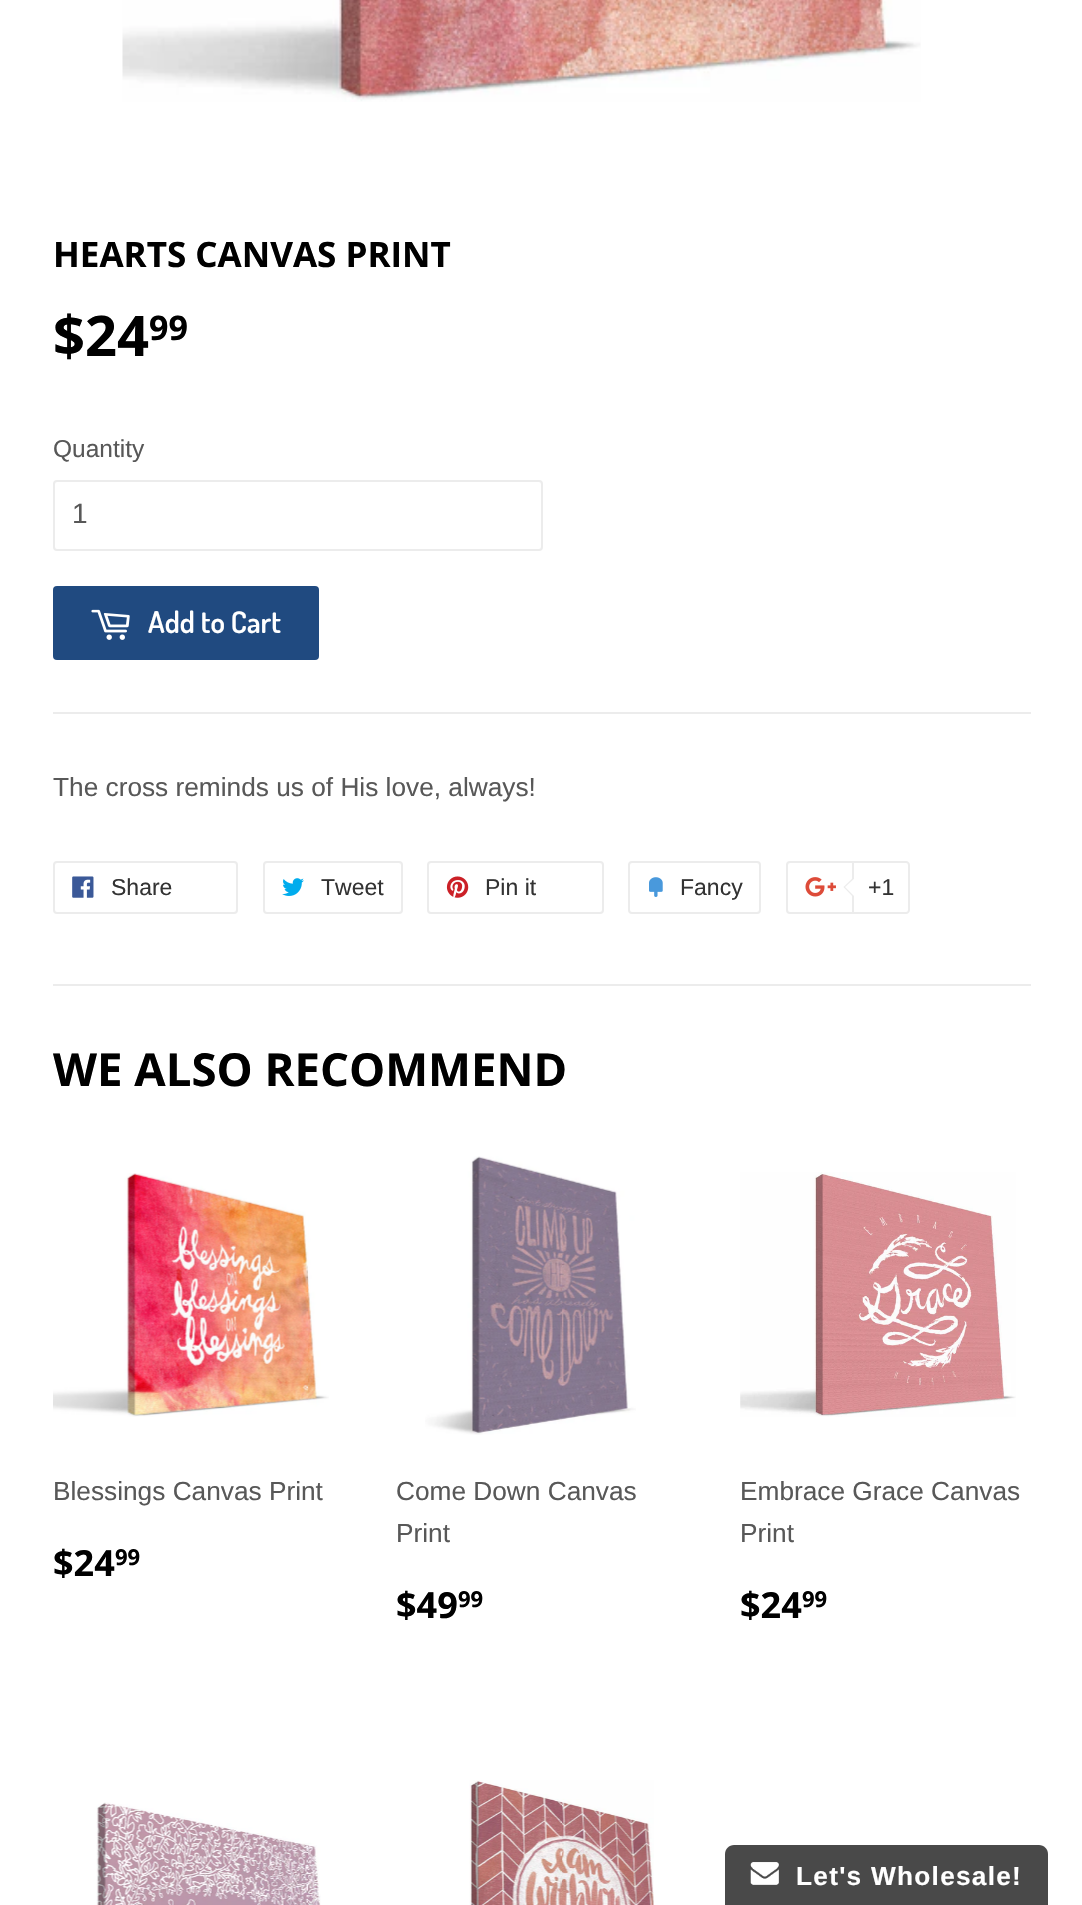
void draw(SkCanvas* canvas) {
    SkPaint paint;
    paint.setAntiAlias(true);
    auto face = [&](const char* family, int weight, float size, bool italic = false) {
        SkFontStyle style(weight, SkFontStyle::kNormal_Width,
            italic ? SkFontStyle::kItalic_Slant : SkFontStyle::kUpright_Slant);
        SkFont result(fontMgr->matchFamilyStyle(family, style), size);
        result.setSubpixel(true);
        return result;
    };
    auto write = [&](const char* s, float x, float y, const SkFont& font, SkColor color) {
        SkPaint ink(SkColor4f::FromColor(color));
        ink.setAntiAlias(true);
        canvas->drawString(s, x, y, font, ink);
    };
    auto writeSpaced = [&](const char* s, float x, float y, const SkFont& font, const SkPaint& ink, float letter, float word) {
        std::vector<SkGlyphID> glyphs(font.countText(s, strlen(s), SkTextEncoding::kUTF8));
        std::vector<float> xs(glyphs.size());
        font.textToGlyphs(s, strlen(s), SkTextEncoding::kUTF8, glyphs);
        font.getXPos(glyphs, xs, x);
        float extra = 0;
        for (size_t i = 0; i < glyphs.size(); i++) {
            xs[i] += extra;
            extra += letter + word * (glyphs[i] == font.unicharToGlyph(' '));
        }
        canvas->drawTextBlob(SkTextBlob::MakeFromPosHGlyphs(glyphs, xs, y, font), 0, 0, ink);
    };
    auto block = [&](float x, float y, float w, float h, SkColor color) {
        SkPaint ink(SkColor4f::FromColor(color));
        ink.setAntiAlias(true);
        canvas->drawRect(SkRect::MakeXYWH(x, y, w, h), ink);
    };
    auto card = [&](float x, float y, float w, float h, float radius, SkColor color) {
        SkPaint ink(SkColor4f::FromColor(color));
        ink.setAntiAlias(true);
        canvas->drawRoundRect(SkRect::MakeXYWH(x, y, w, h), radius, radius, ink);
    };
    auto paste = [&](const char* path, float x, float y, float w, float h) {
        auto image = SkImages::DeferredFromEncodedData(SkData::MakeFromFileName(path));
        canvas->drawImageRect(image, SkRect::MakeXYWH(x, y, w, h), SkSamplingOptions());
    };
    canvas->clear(SK_ColorWHITE);
    paste("pic1.png", 122, 0, 799, 102);
    auto kFont1 = face("Open Sans", 700, 35);
    write("HEARTS CANVAS PRINT", 53, 267, kFont1, SK_ColorBLACK);
    auto kFont2 = face("Open Sans", 700, 56);
    write("$24", 53, 356, kFont2, SK_ColorBLACK);
    auto kFont3 = face("Open Sans", 700, 34);
    write("99", 149, 340, kFont3, SK_ColorBLACK);
    auto kFont4 = face("Liberation Sans", 400, 24.5f);
    write("Quantity", 53, 457, kFont4, SkColorSetRGB(88, 88, 88));
    paint.setStyle(SkPaint::kStroke_Style);
    paint.setStrokeWidth(2);
    paint.setColor(SkColorSetRGB(236, 236, 236));
    canvas->drawRoundRect(SkRect::MakeXYWH(54, 481, 488, 69), 3, 3, paint);
    auto kFont5 = face("Liberation Sans", 400, 28);
    write("1", 72, 523, kFont5, SkColorSetRGB(88, 88, 88));
    card(53, 586, 266, 74, 4, SkColorSetRGB(32, 74, 128));
    paste("pic2.png", 91, 609, 39, 31);
    auto kFont6 = face("Dosis", 600, 29.75f);
    write("Add to Cart", 148, 633, kFont6, SK_ColorWHITE);
    block(53, 712, 978, 2, SkColorSetRGB(236, 236, 236));
    auto kFont7 = face("Liberation Sans", 400, 26.25f);
    write("The cross reminds us of His love, always!", 53, 796, kFont7, SkColorSetRGB(88, 88, 88));
    canvas->drawRoundRect(SkRect::MakeXYWH(54, 862, 183, 51), 3, 3, paint);
    paste("pic3.png", 72, 876, 22, 22);
    auto kFont8 = face("Liberation Sans", 400, 23);
    write("Share", 111, 895, kFont8, SkColorSetRGB(51, 51, 51));
    canvas->drawRoundRect(SkRect::MakeXYWH(264, 862, 138, 51), 3, 3, paint);
    paste("pic4.png", 282, 878, 22, 18);
    write("Tweet", 321, 895, kFont8, SkColorSetRGB(51, 51, 51));
    canvas->drawRoundRect(SkRect::MakeXYWH(428, 862, 175, 51), 3, 3, paint);
    paste("pic5.png", 446, 876, 23, 22);
    write("Pin it", 485, 895, kFont8, SkColorSetRGB(51, 51, 51));
    canvas->drawRoundRect(SkRect::MakeXYWH(629, 862, 131, 51), 3, 3, paint);
    paste("pic6.png", 649, 877, 14, 20);
    write("Fancy", 680, 895, kFont8, SkColorSetRGB(51, 51, 51));
    canvas->drawRoundRect(SkRect::MakeXYWH(787, 862, 120, 51), 3, 3, paint);
    paste("pic7.png", 805, 877, 31, 20);
    paint.setStyle(SkPaint::kFill_Style);
    paint.setColor(SK_ColorWHITE);
    canvas->drawPath(SkPathBuilder().moveTo(853, 862).lineTo(906, 862).cubicTo(907.5f, 862, 909, 863.5f, 909, 865).lineTo(909, 910).cubicTo(909, 911.5f, 907.5f, 913, 906, 913).lineTo(853, 913).close().detach(), paint);
    paint.setStyle(SkPaint::kStroke_Style);
    paint.setColor(SkColorSetRGB(236, 236, 236));
    canvas->drawPath(SkPathBuilder().moveTo(853, 862).lineTo(906, 862).cubicTo(907.5f, 862, 909, 863.5f, 909, 865).lineTo(909, 910).cubicTo(909, 911.5f, 907.5f, 913, 906, 913).lineTo(853, 913).close().detach(), paint);
    paint.setStyle(SkPaint::kFill_Style);
    canvas->drawPath(SkPathBuilder().moveTo(854, 877).lineTo(854, 898).lineTo(843.5f, 887).close().detach(), paint);
    paint.setColor(SK_ColorWHITE);
    canvas->drawPath(SkPathBuilder().moveTo(856, 877).lineTo(856, 898).lineTo(845, 887).close().detach(), paint);
    write("+1", 868, 895, kFont8, SkColorSetRGB(51, 51, 51));
    block(53, 984, 978, 2, SkColorSetRGB(236, 236, 236));
    auto kFont9 = face("Open Sans", 700, 45.5f);
    write("WE ALSO RECOMMEND", 53, 1086, kFont9, SK_ColorBLACK);
    paste("pic8.png", 53, 1173, 276, 244);
    write("Blessings Canvas Print", 53, 1500, kFont7, SkColorSetRGB(88, 88, 88));
    auto kFont10 = face("Open Sans", 700, 36);
    write("$24", 53, 1576, kFont10, SK_ColorBLACK);
    auto kFont11 = face("Open Sans", 700, 22);
    write("99", 115, 1565, kFont11, SK_ColorBLACK);
    paste("pic9.png", 425, 1156, 211, 279);
    write("Come Down Canvas", 396, 1500, kFont7, SkColorSetRGB(88, 88, 88));
    write("Print", 396, 1542, kFont7, SkColorSetRGB(88, 88, 88));
    write("$49", 396, 1618, kFont10, SK_ColorBLACK);
    write("99", 458, 1607, kFont11, SK_ColorBLACK);
    paste("pic10.png", 740, 1172, 276, 245);
    write("Embrace Grace Canvas", 740, 1500, kFont7, SkColorSetRGB(88, 88, 88));
    write("Print", 740, 1542, kFont7, SkColorSetRGB(88, 88, 88));
    write("$24", 740, 1618, kFont10, SK_ColorBLACK);
    write("99", 802, 1607, kFont11, SK_ColorBLACK);
    paste("pic11.png", 96, 1802, 225, 103);
    paste("pic12.png", 469, 1780, 185, 125);
    paint.setColor(SkColorSetRGB(73, 73, 73));
    canvas->drawPath(SkPathBuilder().moveTo(734, 1845).lineTo(1039, 1845).cubicTo(1044, 1845, 1048, 1849, 1048, 1854).lineTo(1048, 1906).lineTo(725, 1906).lineTo(725, 1854).cubicTo(725, 1849, 729, 1845, 734, 1845).close().detach(), paint);
    paste("pic13.png", 750, 1862, 29, 23);
    auto kFont12 = face("Liberation Sans", 700, 26.25f);
    paint.setColor(SK_ColorWHITE);
    writeSpaced("Let's Wholesale!", 796, 1885, kFont12, paint, 1.25f, 0);
}
